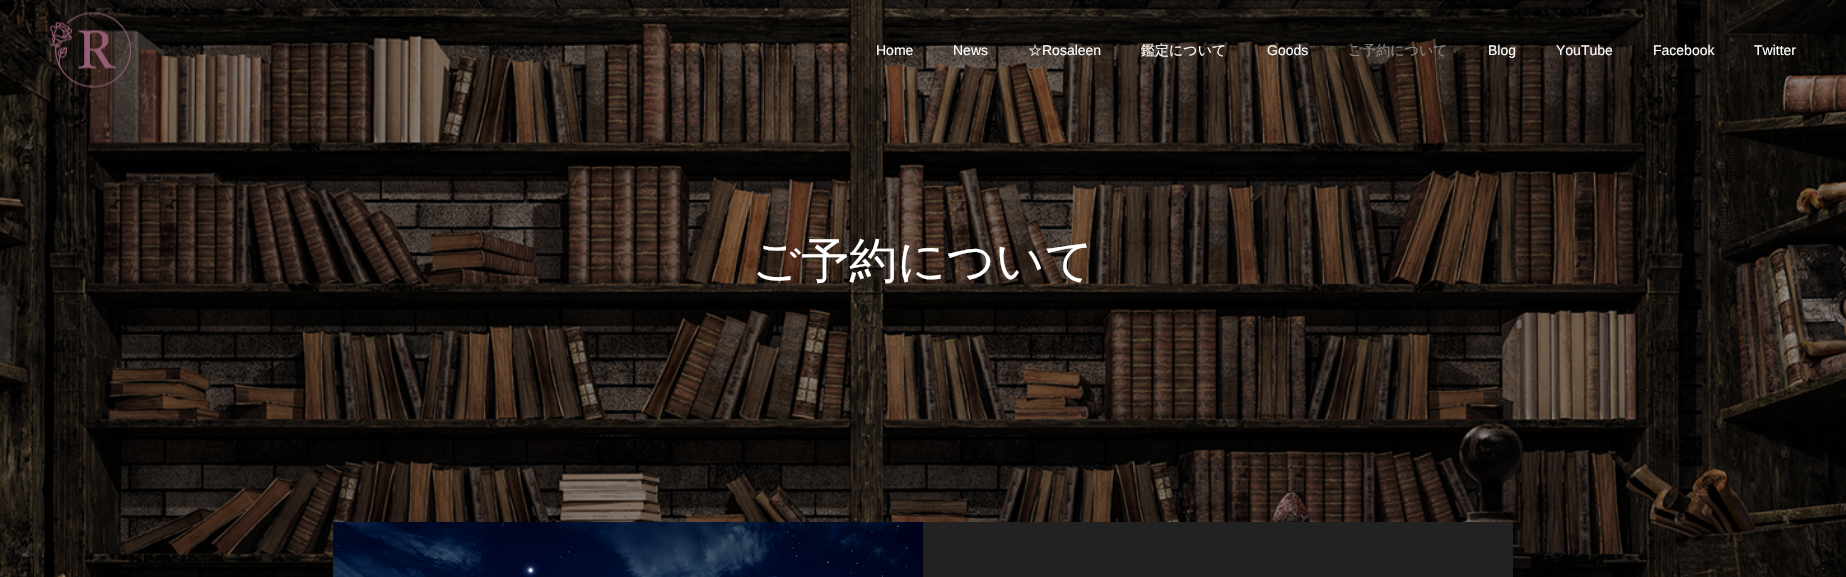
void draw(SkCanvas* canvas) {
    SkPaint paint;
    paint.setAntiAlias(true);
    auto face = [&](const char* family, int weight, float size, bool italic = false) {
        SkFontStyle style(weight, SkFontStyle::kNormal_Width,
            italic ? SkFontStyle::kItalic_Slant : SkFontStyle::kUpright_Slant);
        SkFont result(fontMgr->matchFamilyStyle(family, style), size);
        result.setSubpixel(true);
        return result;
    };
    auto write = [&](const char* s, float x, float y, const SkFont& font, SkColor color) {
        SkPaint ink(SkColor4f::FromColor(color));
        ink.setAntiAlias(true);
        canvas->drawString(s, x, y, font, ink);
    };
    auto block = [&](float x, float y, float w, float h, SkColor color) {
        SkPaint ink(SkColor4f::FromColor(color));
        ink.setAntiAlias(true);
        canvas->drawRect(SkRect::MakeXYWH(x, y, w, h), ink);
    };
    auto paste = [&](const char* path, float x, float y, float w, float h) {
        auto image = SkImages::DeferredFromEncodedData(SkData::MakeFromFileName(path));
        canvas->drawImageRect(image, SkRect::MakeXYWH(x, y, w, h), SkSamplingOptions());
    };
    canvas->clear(SK_ColorWHITE);
    paste("pic1.png", 0, 0, 1846, 577);
    paste("pic2.png", 50, 12, 81, 76);
    auto kFont1 = face("Liberation Sans", 400, 14);
    write("Home", 876, 55, kFont1, SK_ColorWHITE);
    write("News", 953, 55, kFont1, SK_ColorWHITE);
    auto kFont2 = face("WenQuanYi Zen Hei", 500, 14);
    write("☆", 1028, 55, kFont2, SK_ColorWHITE);
    write("Rosaleen", 1042, 55, kFont1, SK_ColorWHITE);
    write("鑑定について", 1141, 55, kFont2, SK_ColorWHITE);
    write("Goods", 1267, 55, kFont1, SK_ColorWHITE);
    write("ご予約について", 1348, 55, kFont2, SkColorSetRGB(136, 136, 136));
    write("Blog", 1488, 55, kFont1, SK_ColorWHITE);
    write("YouTube", 1556, 55, kFont1, SK_ColorWHITE);
    write("Facebook", 1653, 55, kFont1, SK_ColorWHITE);
    write("Twitter", 1754, 55, kFont1, SK_ColorWHITE);
    auto kFont3 = face("WenQuanYi Zen Hei", 500, 48);
    write("ご予約について", 752, 277, kFont3, SK_ColorWHITE);
    block(923, 522, 590, 55, SkColorSetRGB(34, 34, 34));
    paste("pic3.png", 333, 522, 590, 55);
}
